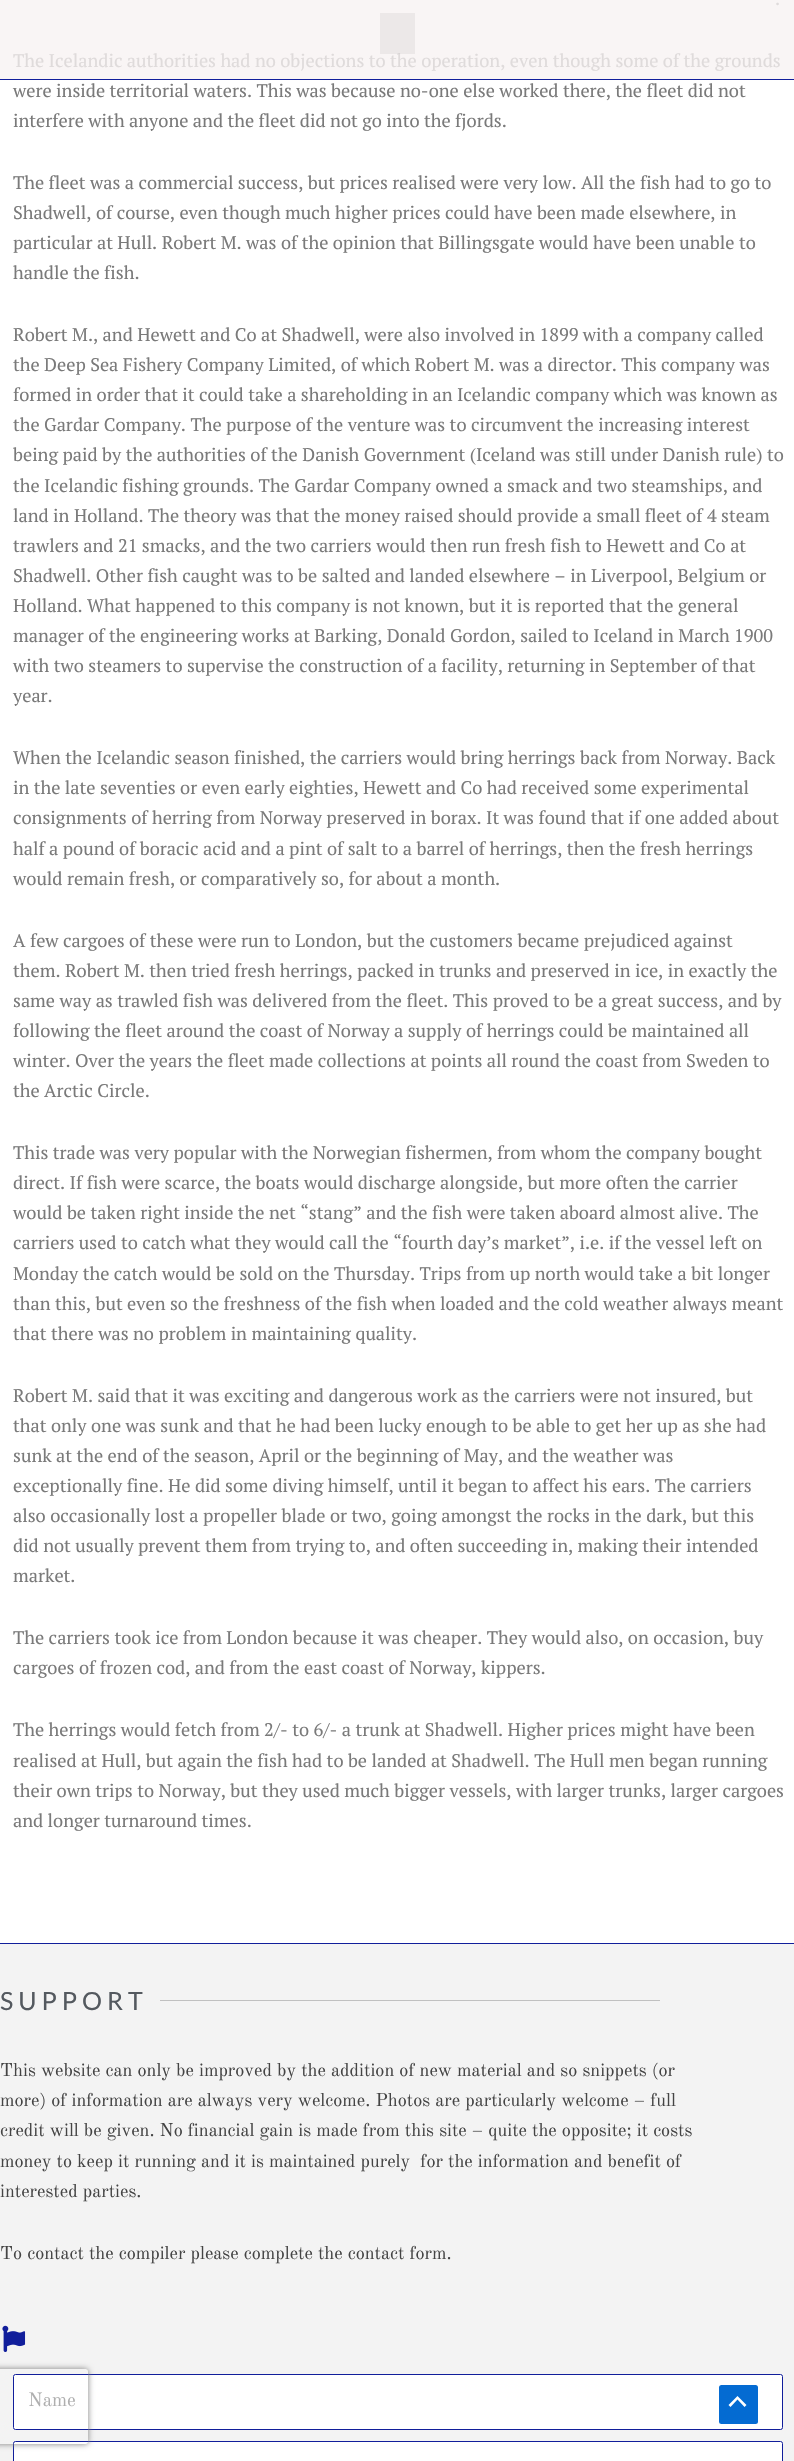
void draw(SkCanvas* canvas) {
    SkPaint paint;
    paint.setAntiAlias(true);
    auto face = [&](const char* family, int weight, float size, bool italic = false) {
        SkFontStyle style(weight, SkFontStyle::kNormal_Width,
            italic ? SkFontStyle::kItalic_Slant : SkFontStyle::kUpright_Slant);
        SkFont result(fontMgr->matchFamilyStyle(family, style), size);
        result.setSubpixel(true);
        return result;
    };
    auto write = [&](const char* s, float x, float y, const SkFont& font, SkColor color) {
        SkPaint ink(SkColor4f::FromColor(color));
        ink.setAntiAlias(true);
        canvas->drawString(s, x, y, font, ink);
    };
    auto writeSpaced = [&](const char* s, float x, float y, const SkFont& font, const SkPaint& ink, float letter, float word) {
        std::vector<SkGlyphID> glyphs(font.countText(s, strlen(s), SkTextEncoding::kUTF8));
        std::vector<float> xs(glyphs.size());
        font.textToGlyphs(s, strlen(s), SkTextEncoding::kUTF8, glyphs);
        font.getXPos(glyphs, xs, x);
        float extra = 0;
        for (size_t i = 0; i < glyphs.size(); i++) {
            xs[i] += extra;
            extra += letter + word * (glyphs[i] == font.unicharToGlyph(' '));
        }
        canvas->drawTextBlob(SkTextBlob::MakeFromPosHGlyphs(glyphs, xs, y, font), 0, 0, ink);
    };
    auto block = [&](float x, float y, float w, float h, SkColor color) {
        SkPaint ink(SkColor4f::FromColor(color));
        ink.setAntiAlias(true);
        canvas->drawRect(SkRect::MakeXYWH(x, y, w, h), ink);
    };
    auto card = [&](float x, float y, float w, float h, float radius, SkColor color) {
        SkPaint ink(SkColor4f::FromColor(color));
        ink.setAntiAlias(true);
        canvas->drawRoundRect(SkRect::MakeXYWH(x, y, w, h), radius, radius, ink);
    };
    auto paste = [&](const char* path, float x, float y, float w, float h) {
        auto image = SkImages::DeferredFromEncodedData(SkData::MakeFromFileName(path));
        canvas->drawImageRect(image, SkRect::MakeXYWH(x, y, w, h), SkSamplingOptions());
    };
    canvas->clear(SK_ColorWHITE);
    block(0, 0, 794, 79, SkColorSetRGB(249, 245, 245));
    auto kFont1 = face("PT Serif", 400, 18.25f);
    write(".", 775, 5, kFont1, SkColorSetRGB(223, 219, 219));
    write("The Icelandic authorities had no objections to the operation, even though some of the grounds", 13, 67, kFont1, SkColorSetRGB(223, 219, 219));
    write("were inside territorial waters. This was because no-one else worked there, the fleet did not", 13, 97, kFont1, SkColorSetRGB(122, 122, 122));
    write("interfere with anyone and the fleet did not go into the fjords.", 13, 127, kFont1, SkColorSetRGB(122, 122, 122));
    write("The fleet was a commercial success, but prices realised were very low. All the fish had to go to", 13, 189, kFont1, SkColorSetRGB(122, 122, 122));
    write("Shadwell, of course, even though much higher prices could have been made elsewhere, in", 13, 219, kFont1, SkColorSetRGB(122, 122, 122));
    write("particular at Hull. Robert M. was of the opinion that Billingsgate would have been unable to", 13, 249, kFont1, SkColorSetRGB(122, 122, 122));
    write("handle the fish.", 13, 279, kFont1, SkColorSetRGB(122, 122, 122));
    write("Robert M., and Hewett and Co at Shadwell, were also involved in 1899 with a company called", 13, 341, kFont1, SkColorSetRGB(122, 122, 122));
    write("the Deep Sea Fishery Company Limited, of which Robert M. was a director. This company was", 13, 371, kFont1, SkColorSetRGB(122, 122, 122));
    write("formed in order that it could take a shareholding in an Icelandic company which was known as", 13, 401, kFont1, SkColorSetRGB(122, 122, 122));
    write("the Gardar Company. The purpose of the venture was to circumvent the increasing interest", 13, 431, kFont1, SkColorSetRGB(122, 122, 122));
    write("being paid by the authorities of the Danish Government (Iceland was still under Danish rule) to", 13, 461, kFont1, SkColorSetRGB(122, 122, 122));
    write("the Icelandic fishing grounds. The Gardar Company owned a smack and two steamships, and", 13, 492, kFont1, SkColorSetRGB(122, 122, 122));
    write("land in Holland. The theory was that the money raised should provide a small fleet of 4 steam", 13, 522, kFont1, SkColorSetRGB(122, 122, 122));
    write("trawlers and 21 smacks, and the two carriers would then run fresh fish to Hewett and Co at", 13, 552, kFont1, SkColorSetRGB(122, 122, 122));
    write("Shadwell. Other fish caught was to be salted and landed elsewhere – in Liverpool, Belgium or", 13, 582, kFont1, SkColorSetRGB(122, 122, 122));
    write("Holland. What happened to this company is not known, but it is reported that the general", 13, 612, kFont1, SkColorSetRGB(122, 122, 122));
    write("manager of the engineering works at Barking, Donald Gordon, sailed to Iceland in March 1900", 13, 642, kFont1, SkColorSetRGB(122, 122, 122));
    write("with two steamers to supervise the construction of a facility, returning in September of that", 13, 672, kFont1, SkColorSetRGB(122, 122, 122));
    write("year.", 13, 702, kFont1, SkColorSetRGB(122, 122, 122));
    write("When the Icelandic season finished, the carriers would bring herrings back from Norway. Back", 13, 764, kFont1, SkColorSetRGB(122, 122, 122));
    write("in the late seventies or even early eighties, Hewett and Co had received some experimental", 13, 794, kFont1, SkColorSetRGB(122, 122, 122));
    write("consignments of herring from Norway preserved in borax. It was found that if one added about", 13, 824, kFont1, SkColorSetRGB(122, 122, 122));
    write("half a pound of boracic acid and a pint of salt to a barrel of herrings, then the fresh herrings", 13, 855, kFont1, SkColorSetRGB(122, 122, 122));
    write("would remain fresh, or comparatively so, for about a month.", 13, 885, kFont1, SkColorSetRGB(122, 122, 122));
    write("A few cargoes of these were run to London, but the customers became prejudiced against", 13, 947, kFont1, SkColorSetRGB(122, 122, 122));
    write("them. Robert M. then tried fresh herrings, packed in trunks and preserved in ice, in exactly the", 13, 977, kFont1, SkColorSetRGB(122, 122, 122));
    write("same way as trawled fish was delivered from the fleet. This proved to be a great success, and by", 13, 1007, kFont1, SkColorSetRGB(122, 122, 122));
    write("following the fleet around the coast of Norway a supply of herrings could be maintained all", 13, 1037, kFont1, SkColorSetRGB(122, 122, 122));
    write("winter. Over the years the fleet made collections at points all round the coast from Sweden to", 13, 1067, kFont1, SkColorSetRGB(122, 122, 122));
    write("the Arctic Circle.", 13, 1097, kFont1, SkColorSetRGB(122, 122, 122));
    write("This trade was very popular with the Norwegian fishermen, from whom the company bought", 13, 1159, kFont1, SkColorSetRGB(122, 122, 122));
    write("direct. If fish were scarce, the boats would discharge alongside, but more often the carrier", 13, 1189, kFont1, SkColorSetRGB(122, 122, 122));
    write("would be taken right inside the net “stang” and the fish were taken aboard almost alive. The", 13, 1219, kFont1, SkColorSetRGB(122, 122, 122));
    write("carriers used to catch what they would call the “fourth day’s market”, i.e. if the vessel left on", 13, 1249, kFont1, SkColorSetRGB(122, 122, 122));
    write("Monday the catch would be sold on the Thursday. Trips from up north would take a bit longer", 13, 1280, kFont1, SkColorSetRGB(122, 122, 122));
    write("than this, but even so the freshness of the fish when loaded and the cold weather always meant", 13, 1310, kFont1, SkColorSetRGB(122, 122, 122));
    write("that there was no problem in maintaining quality.", 13, 1340, kFont1, SkColorSetRGB(122, 122, 122));
    write("Robert M. said that it was exciting and dangerous work as the carriers were not insured, but", 13, 1402, kFont1, SkColorSetRGB(122, 122, 122));
    write("that only one was sunk and that he had been lucky enough to be able to get her up as she had", 13, 1432, kFont1, SkColorSetRGB(122, 122, 122));
    write("sunk at the end of the season, April or the beginning of May, and the weather was", 13, 1462, kFont1, SkColorSetRGB(122, 122, 122));
    write("exceptionally fine. He did some diving himself, until it began to affect his ears. The carriers", 13, 1492, kFont1, SkColorSetRGB(122, 122, 122));
    write("also occasionally lost a propeller blade or two, going amongst the rocks in the dark, but this", 13, 1522, kFont1, SkColorSetRGB(122, 122, 122));
    write("did not usually prevent them from trying to, and often succeeding in, making their intended", 13, 1552, kFont1, SkColorSetRGB(122, 122, 122));
    write("market.", 13, 1582, kFont1, SkColorSetRGB(122, 122, 122));
    write("The carriers took ice from London because it was cheaper. They would also, on occasion, buy", 13, 1644, kFont1, SkColorSetRGB(122, 122, 122));
    write("cargoes of frozen cod, and from the east coast of Norway, kippers.", 13, 1674, kFont1, SkColorSetRGB(122, 122, 122));
    write("The herrings would fetch from 2/- to 6/- a trunk at Shadwell. Higher prices might have been", 13, 1736, kFont1, SkColorSetRGB(122, 122, 122));
    write("realised at Hull, but again the fish had to be landed at Shadwell. The Hull men began running", 13, 1767, kFont1, SkColorSetRGB(122, 122, 122));
    write("their own trips to Norway, but they used much bigger vessels, with larger trunks, larger cargoes", 13, 1797, kFont1, SkColorSetRGB(122, 122, 122));
    write("and longer turnaround times.", 13, 1827, kFont1, SkColorSetRGB(122, 122, 122));
    block(0, 79, 794, 1, SkColorSetRGB(17, 30, 155));
    block(380, 13, 35, 41, SkColorSetARGB(13, 0, 0, 0));
    block(0, 1944, 794, 517, SkColorSetRGB(243, 243, 243));
    block(0, 1943, 794, 1, SkColorSetRGB(17, 30, 155));
    auto kFont2 = face("Lato", 400, 25);
    paint.setColor(SkColorSetRGB(84, 89, 95));
    writeSpaced("SUPPORT", 0, 2010, kFont2, paint, 5, 0);
    block(160, 2000, 500, 1, SkColorSetRGB(192, 192, 192));
    auto kFont3 = face("Old Standard TT", 400, 18.25f);
    write("This website can only be improved by the addition of new material and so snippets (or", 0, 2076, kFont3, SkColorSetRGB(68, 68, 68));
    write("more) of information are always very welcome. Photos are particularly welcome – full", 0, 2106, kFont3, SkColorSetRGB(68, 68, 68));
    write("credit will be given. No financial gain is made from this site – quite the opposite; it costs", 0, 2136, kFont3, SkColorSetRGB(68, 68, 68));
    write("money to keep it running and it is maintained purely  for the information and benefit of", 0, 2167, kFont3, SkColorSetRGB(68, 68, 68));
    write("interested parties.", 0, 2197, kFont3, SkColorSetRGB(68, 68, 68));
    write("To contact the compiler please complete the contact form.", 0, 2259, kFont3, SkColorSetRGB(68, 68, 68));
    paste("pic1.png", 2, 2325, 24, 27);
    paint.setColor(SK_ColorWHITE);
    canvas->drawRoundRect(SkRect::MakeXYWH(13.5f, 2374.5f, 769, 55), 2, 2, paint);
    paint.setStyle(SkPaint::kStroke_Style);
    paint.setStrokeWidth(1);
    paint.setColor(SkColorSetRGB(17, 30, 155));
    canvas->drawRoundRect(SkRect::MakeXYWH(13.5f, 2374.5f, 769, 55), 2, 2, paint);
    paint.setStyle(SkPaint::kFill_Style);
    paint.setColor(SK_ColorWHITE);
    canvas->drawRoundRect(SkRect::MakeXYWH(13.5f, 2441.5f, 769, 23), 2, 2, paint);
    paint.setStyle(SkPaint::kStroke_Style);
    paint.setColor(SkColorSetRGB(17, 30, 155));
    canvas->drawRoundRect(SkRect::MakeXYWH(13.5f, 2441.5f, 769, 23), 2, 2, paint);
    canvas->save();
    canvas->clipPath(SkPathBuilder(SkPathFillType::kEvenOdd).moveTo(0, 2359).lineTo(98, 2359).lineTo(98, 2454).lineTo(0, 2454).close().moveTo(-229.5f, 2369).lineTo(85.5f, 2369).cubicTo(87, 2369, 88, 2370, 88, 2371.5f).lineTo(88, 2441.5f).cubicTo(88, 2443, 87, 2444, 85.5f, 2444).lineTo(-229.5f, 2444).cubicTo(-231, 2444, -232, 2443, -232, 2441.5f).lineTo(-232, 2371.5f).cubicTo(-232, 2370, -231, 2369, -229.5f, 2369).close().detach(), true);
    paint.setStyle(SkPaint::kFill_Style);
    paint.setColor(SkColorSetRGB(128, 128, 128));
    paint.setMaskFilter(SkMaskFilter::MakeBlur(kNormal_SkBlurStyle, 3));
    canvas->drawRoundRect(SkRect::MakeXYWH(-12, 2369, 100, 75), 2.5f, 2.5f, paint);
    paint.setMaskFilter(nullptr);
    canvas->restore();
    auto kFont4 = face("Old Standard TT", 400, 19);
    write("Name", 28, 2406, kFont4, SkColorSetRGB(175, 175, 175));
    card(719, 2385, 39, 39, 2.5f, SkColorSetRGB(4, 107, 210));
    paint.setColor(SK_ColorWHITE);
    canvas->drawPath(SkPathBuilder().moveTo(746.5f, 2405).lineTo(737.5f, 2396).lineTo(728.5f, 2405).lineTo(730.5f, 2407).lineTo(737.5f, 2399.5f).lineTo(744.5f, 2407).close().detach(), paint);
}
